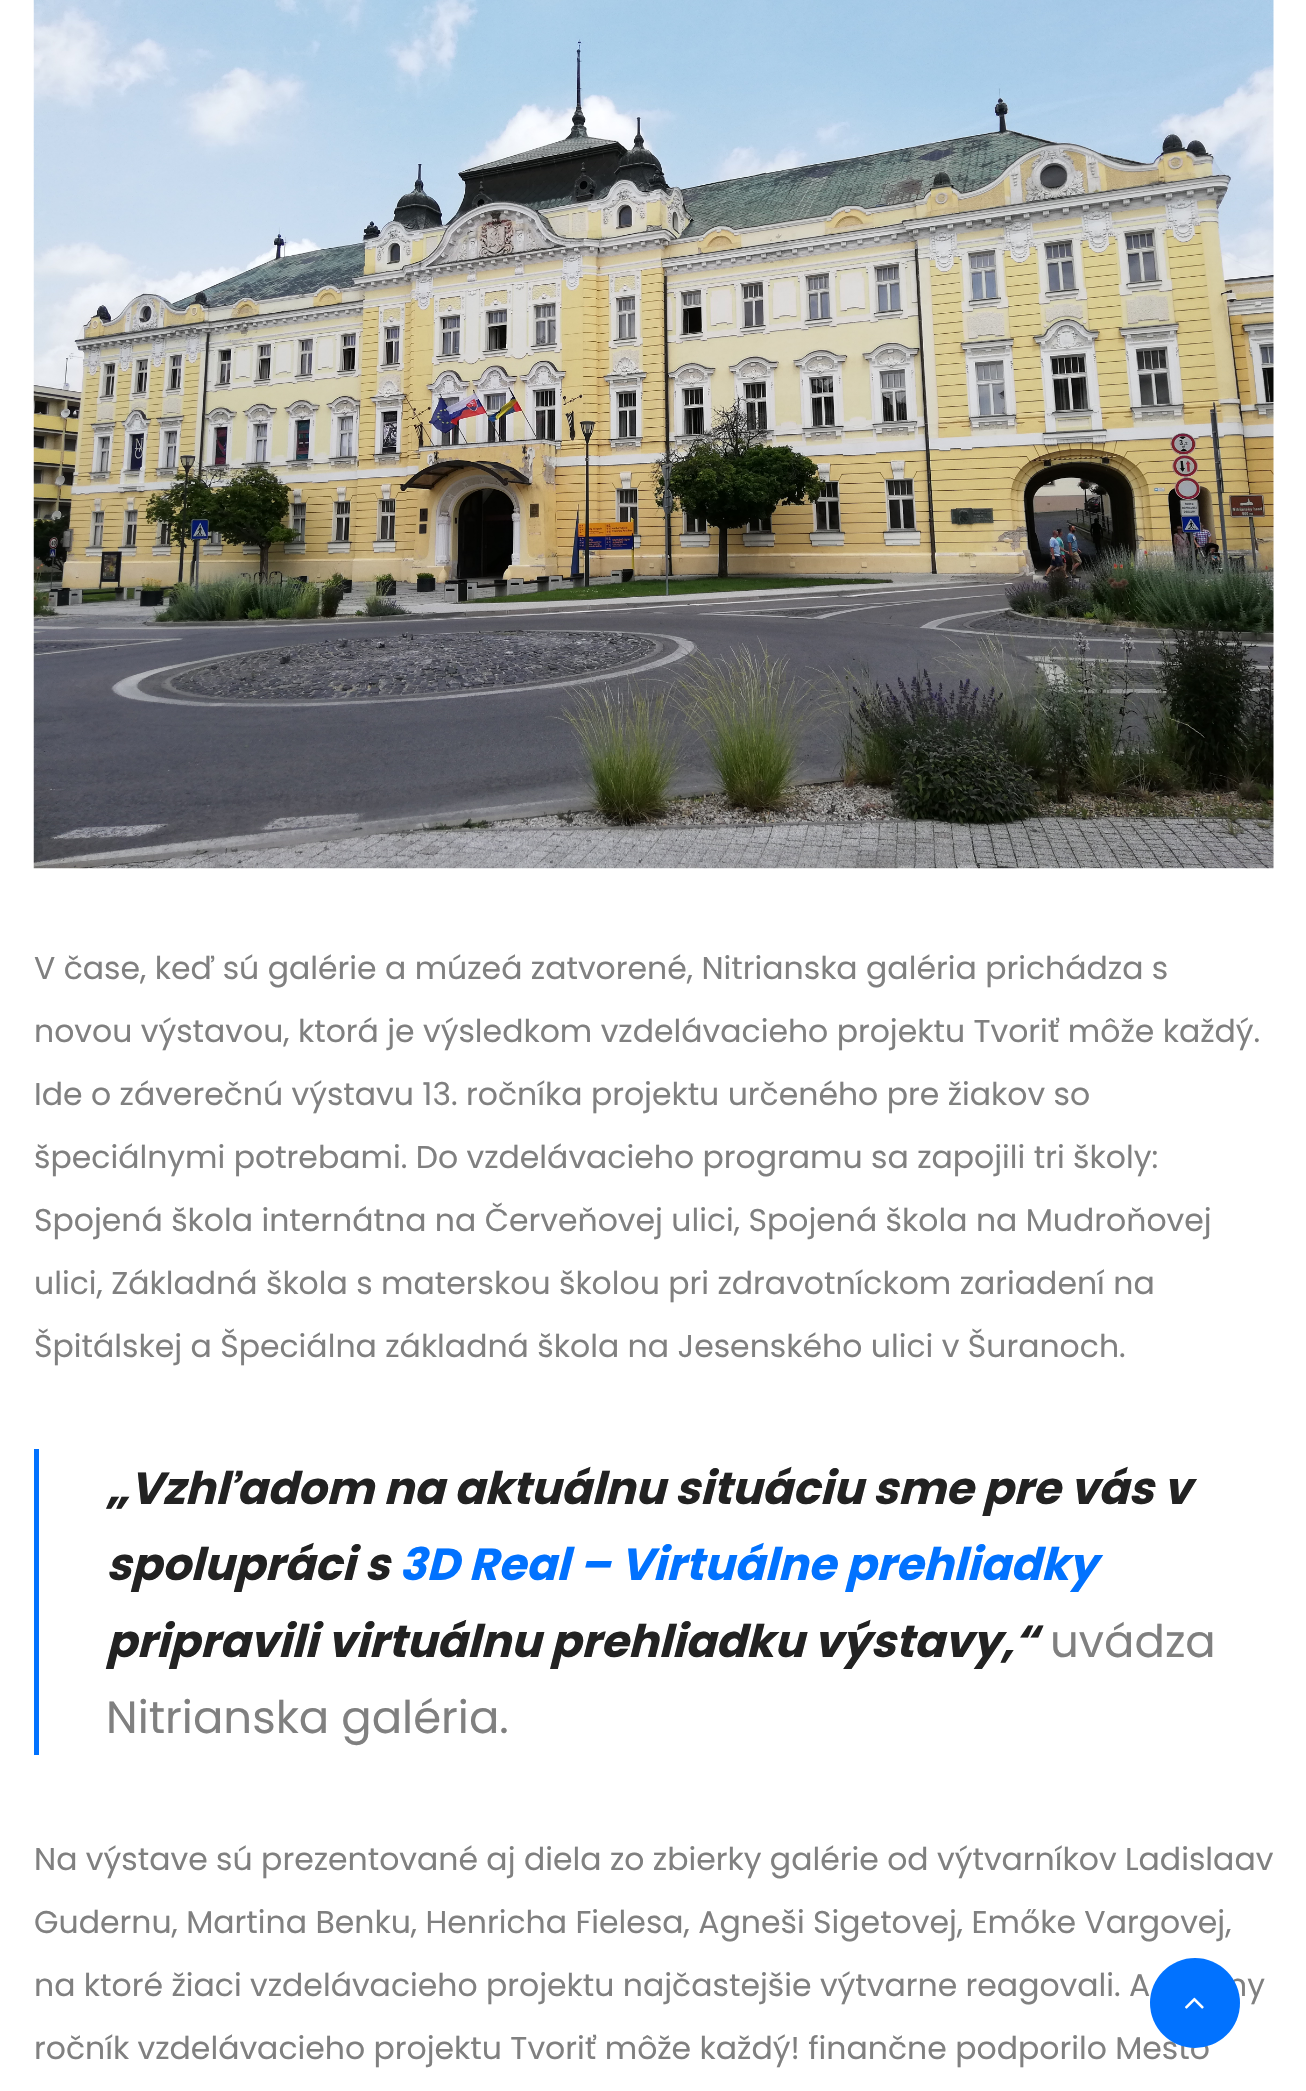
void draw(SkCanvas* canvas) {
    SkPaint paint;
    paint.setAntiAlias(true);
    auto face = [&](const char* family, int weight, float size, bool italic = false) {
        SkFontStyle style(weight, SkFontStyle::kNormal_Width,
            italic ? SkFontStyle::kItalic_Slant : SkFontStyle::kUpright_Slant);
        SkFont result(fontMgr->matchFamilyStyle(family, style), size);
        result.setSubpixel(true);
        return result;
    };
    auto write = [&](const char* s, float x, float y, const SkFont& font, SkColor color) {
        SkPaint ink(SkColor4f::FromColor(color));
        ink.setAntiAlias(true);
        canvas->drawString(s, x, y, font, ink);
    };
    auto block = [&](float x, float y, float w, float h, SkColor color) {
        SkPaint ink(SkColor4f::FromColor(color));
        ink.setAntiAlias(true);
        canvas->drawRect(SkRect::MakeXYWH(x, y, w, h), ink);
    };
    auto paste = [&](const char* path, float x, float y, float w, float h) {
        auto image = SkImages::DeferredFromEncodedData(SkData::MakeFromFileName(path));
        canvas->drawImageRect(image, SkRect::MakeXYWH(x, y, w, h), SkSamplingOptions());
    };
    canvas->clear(SK_ColorWHITE);
    paste("pic1.png", 33, 0, 1241, 869);
    auto kFont1 = face("Poppins", 400, 31.5f);
    write("V čase, keď sú galérie a múzeá zatvorené, Nitrianska galéria prichádza s", 34, 979, kFont1, SkColorSetRGB(128, 128, 128));
    write("novou výstavou, ktorá je výsledkom vzdelávacieho projektu Tvoriť môže každý.", 34, 1042, kFont1, SkColorSetRGB(128, 128, 128));
    write("Ide o záverečnú výstavu 13. ročníka projektu určeného pre žiakov so", 34, 1105, kFont1, SkColorSetRGB(128, 128, 128));
    write("špeciálnymi potrebami. Do vzdelávacieho programu sa zapojili tri školy:", 34, 1168, kFont1, SkColorSetRGB(128, 128, 128));
    write("Spojená škola internátna na Červeňovej ulici, Spojená škola na Mudroňovej", 34, 1231, kFont1, SkColorSetRGB(128, 128, 128));
    write("ulici, Základná škola s materskou školou pri zdravotníckom zariadení na", 34, 1294, kFont1, SkColorSetRGB(128, 128, 128));
    write("Špitálskej a Špeciálna základná škola na Jesenského ulici v Šuranoch.", 34, 1357, kFont1, SkColorSetRGB(128, 128, 128));
    block(34, 1449, 5, 306, SkColorSetRGB(1, 114, 255));
    auto kFont2 = face("Poppins", 700, 45, true);
    write("„Vzhľadom na aktuálnu situáciu sme pre vás v", 106, 1504, kFont2, SkColorSetRGB(34, 34, 34));
    write("spolupráci s", 106, 1580, kFont2, SkColorSetRGB(34, 34, 34));
    write("3D Real – Virtuálne prehliadky", 399, 1580, kFont2, SkColorSetRGB(1, 114, 255));
    write("pripravili virtuálnu prehliadku výstavy,“", 106, 1657, kFont2, SkColorSetRGB(34, 34, 34));
    auto kFont3 = face("Poppins", 400, 45);
    write("uvádza", 1050, 1657, kFont3, SkColorSetRGB(128, 128, 128));
    write("Nitrianska galéria.", 106, 1733, kFont3, SkColorSetRGB(128, 128, 128));
    write("Na výstave sú prezentované aj diela zo zbierky galérie od výtvarníkov Ladislaav", 34, 1870, kFont1, SkColorSetRGB(128, 128, 128));
    write("Gudernu, Martina Benku, Henricha Fielesa, Agneši Sigetovej, Emőke Vargovej,", 34, 1933, kFont1, SkColorSetRGB(128, 128, 128));
    write("na ktoré žiaci vzdelávacieho projektu najčastejšie výtvarne reagovali. A", 34, 1996, kFont1, SkColorSetRGB(128, 128, 128));
    write("ny", 1227, 1996, kFont1, SkColorSetRGB(128, 128, 128));
    write("ročník vzdelávacieho projektu Tvoriť môže každý! finančne podporilo Mesto", 34, 2059, kFont1, SkColorSetRGB(128, 128, 128));
    paint.setColor(SkColorSetRGB(1, 114, 255));
    canvas->drawCircle(1195, 2003, 45, paint);
    paste("pic2.png", 1185, 1997, 19, 12);
}
